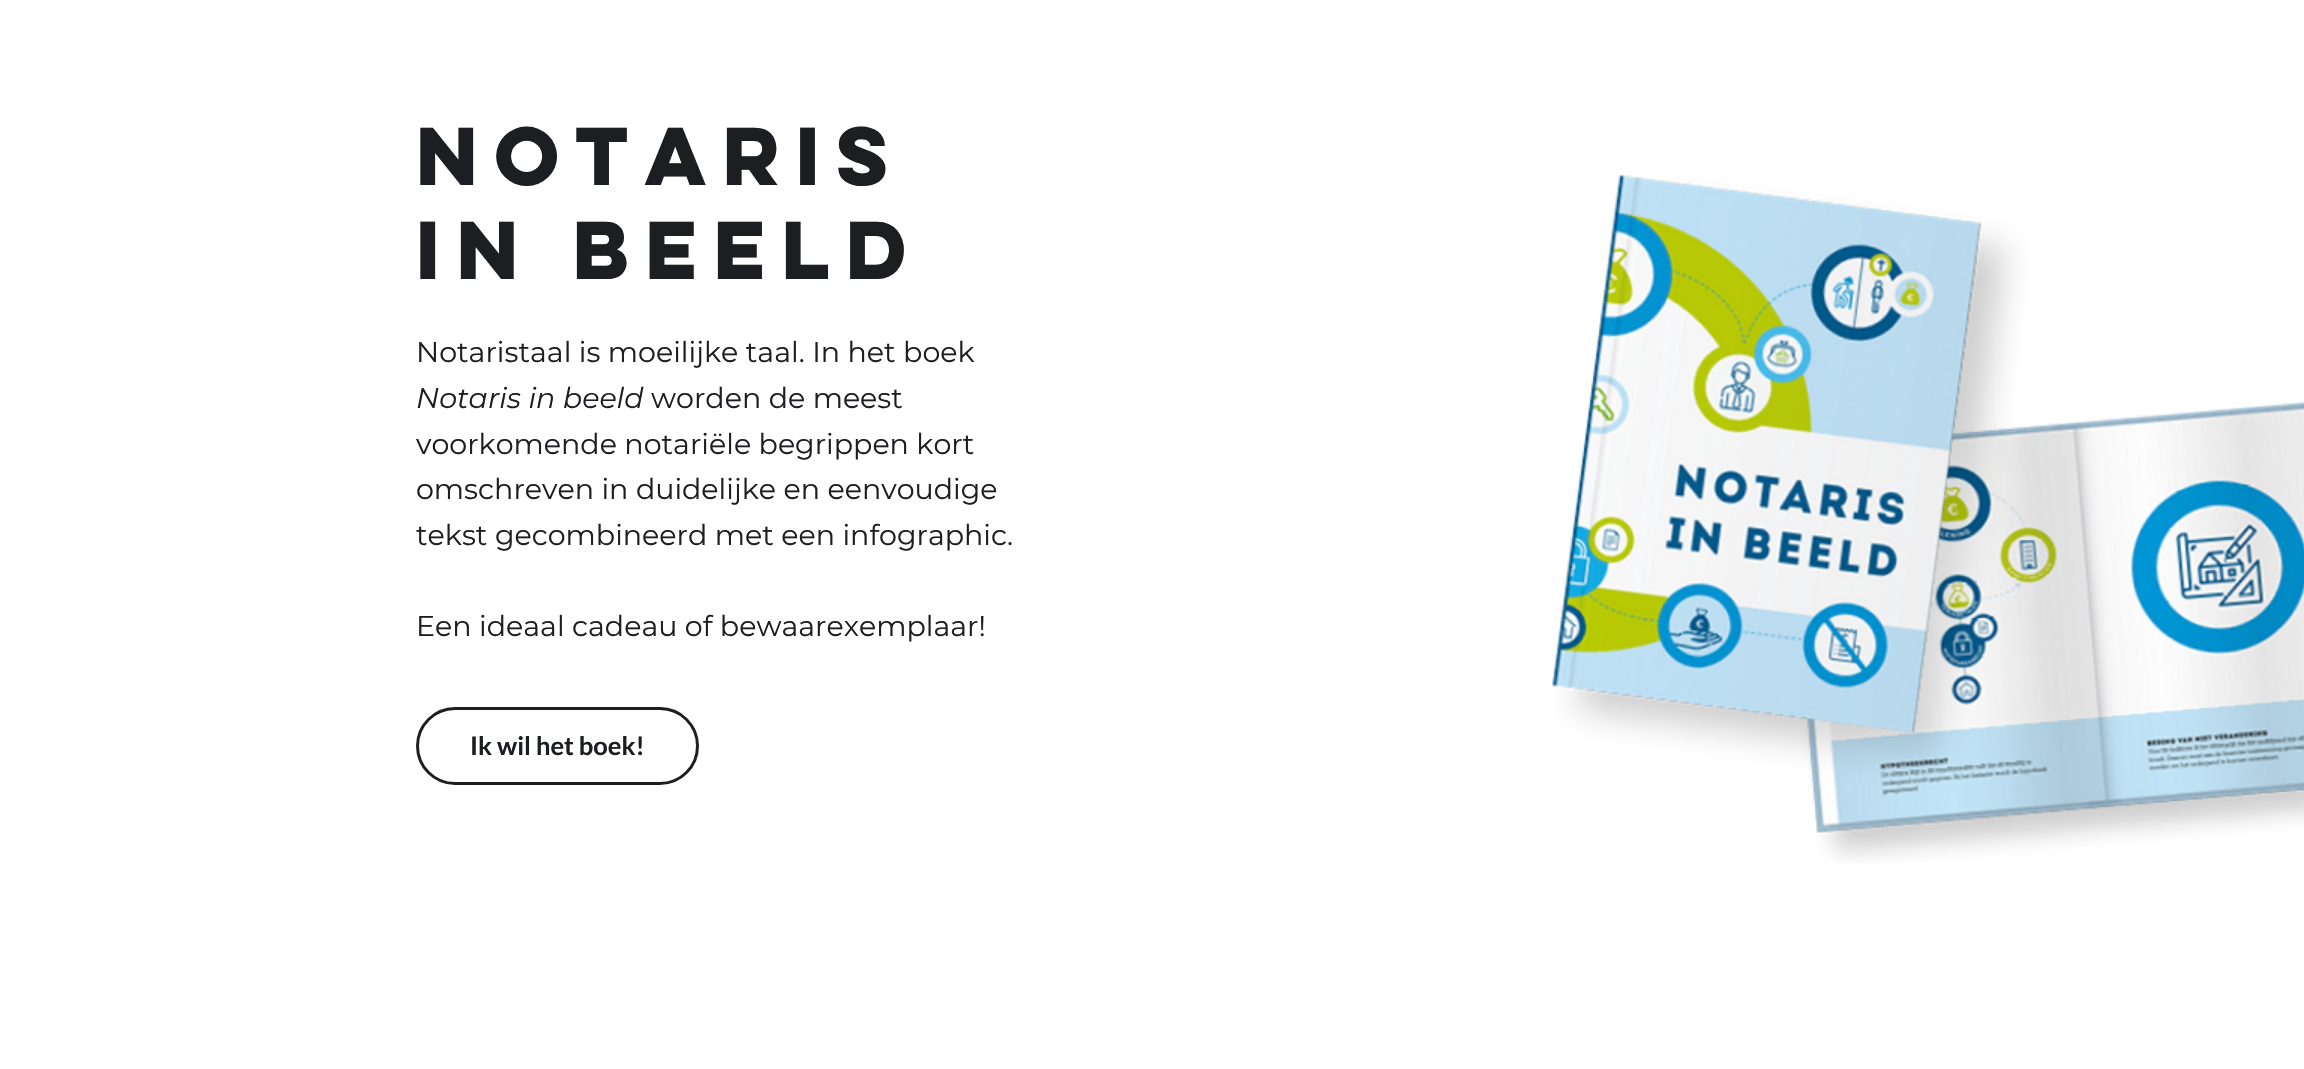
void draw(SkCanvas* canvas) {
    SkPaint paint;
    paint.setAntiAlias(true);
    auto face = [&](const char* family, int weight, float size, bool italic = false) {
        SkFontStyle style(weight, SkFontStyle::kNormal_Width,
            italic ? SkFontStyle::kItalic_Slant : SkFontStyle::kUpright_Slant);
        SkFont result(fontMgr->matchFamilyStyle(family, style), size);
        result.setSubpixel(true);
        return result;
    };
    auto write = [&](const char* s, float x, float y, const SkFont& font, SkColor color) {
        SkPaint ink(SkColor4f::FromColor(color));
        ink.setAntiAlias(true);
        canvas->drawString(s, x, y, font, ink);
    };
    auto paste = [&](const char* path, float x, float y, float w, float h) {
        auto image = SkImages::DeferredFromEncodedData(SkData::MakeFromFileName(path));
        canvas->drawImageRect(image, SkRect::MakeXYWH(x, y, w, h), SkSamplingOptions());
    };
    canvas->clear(SK_ColorWHITE);
    auto kFont1 = face("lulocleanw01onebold", 700, 73.5f);
    write("Notaris", 416, 185, kFont1, SkColorSetRGB(29, 30, 33));
    write("in Beeld", 416, 279, kFont1, SkColorSetRGB(29, 30, 33));
    auto kFont2 = face("Montserrat", 400, 28.5f);
    write("Notaristaal is moeilijke taal. In het boek", 416, 362, kFont2, SkColorSetRGB(29, 30, 33));
    auto kFont3 = face("Montserrat", 400, 28.5f, true);
    write("Notaris in beeld", 416, 408, kFont3, SkColorSetRGB(29, 30, 33));
    write("worden de meest", 651, 408, kFont2, SkColorSetRGB(29, 30, 33));
    write("voorkomende notariële begrippen kort", 416, 454, kFont2, SkColorSetRGB(29, 30, 33));
    write("omschreven in duidelijke en eenvoudige", 416, 499, kFont2, SkColorSetRGB(29, 30, 33));
    write("tekst gecombineerd met een infographic.", 416, 545, kFont2, SkColorSetRGB(29, 30, 33));
    write("Een ideaal cadeau of bewaarexemplaar!", 416, 636, kFont2, SkColorSetRGB(29, 30, 33));
    paint.setStyle(SkPaint::kStroke_Style);
    paint.setStrokeWidth(3);
    paint.setColor(SkColorSetRGB(29, 30, 33));
    canvas->drawRoundRect(SkRect::MakeXYWH(417.5f, 708.5f, 280, 75), 37.5f, 37.5f, paint);
    auto kFont4 = face("Lato", 700, 25.5f);
    write("Ik wil het boek!", 470, 755, kFont4, SkColorSetRGB(29, 30, 33));
    paste("pic1.png", 1552, 175, 752, 688);
}
